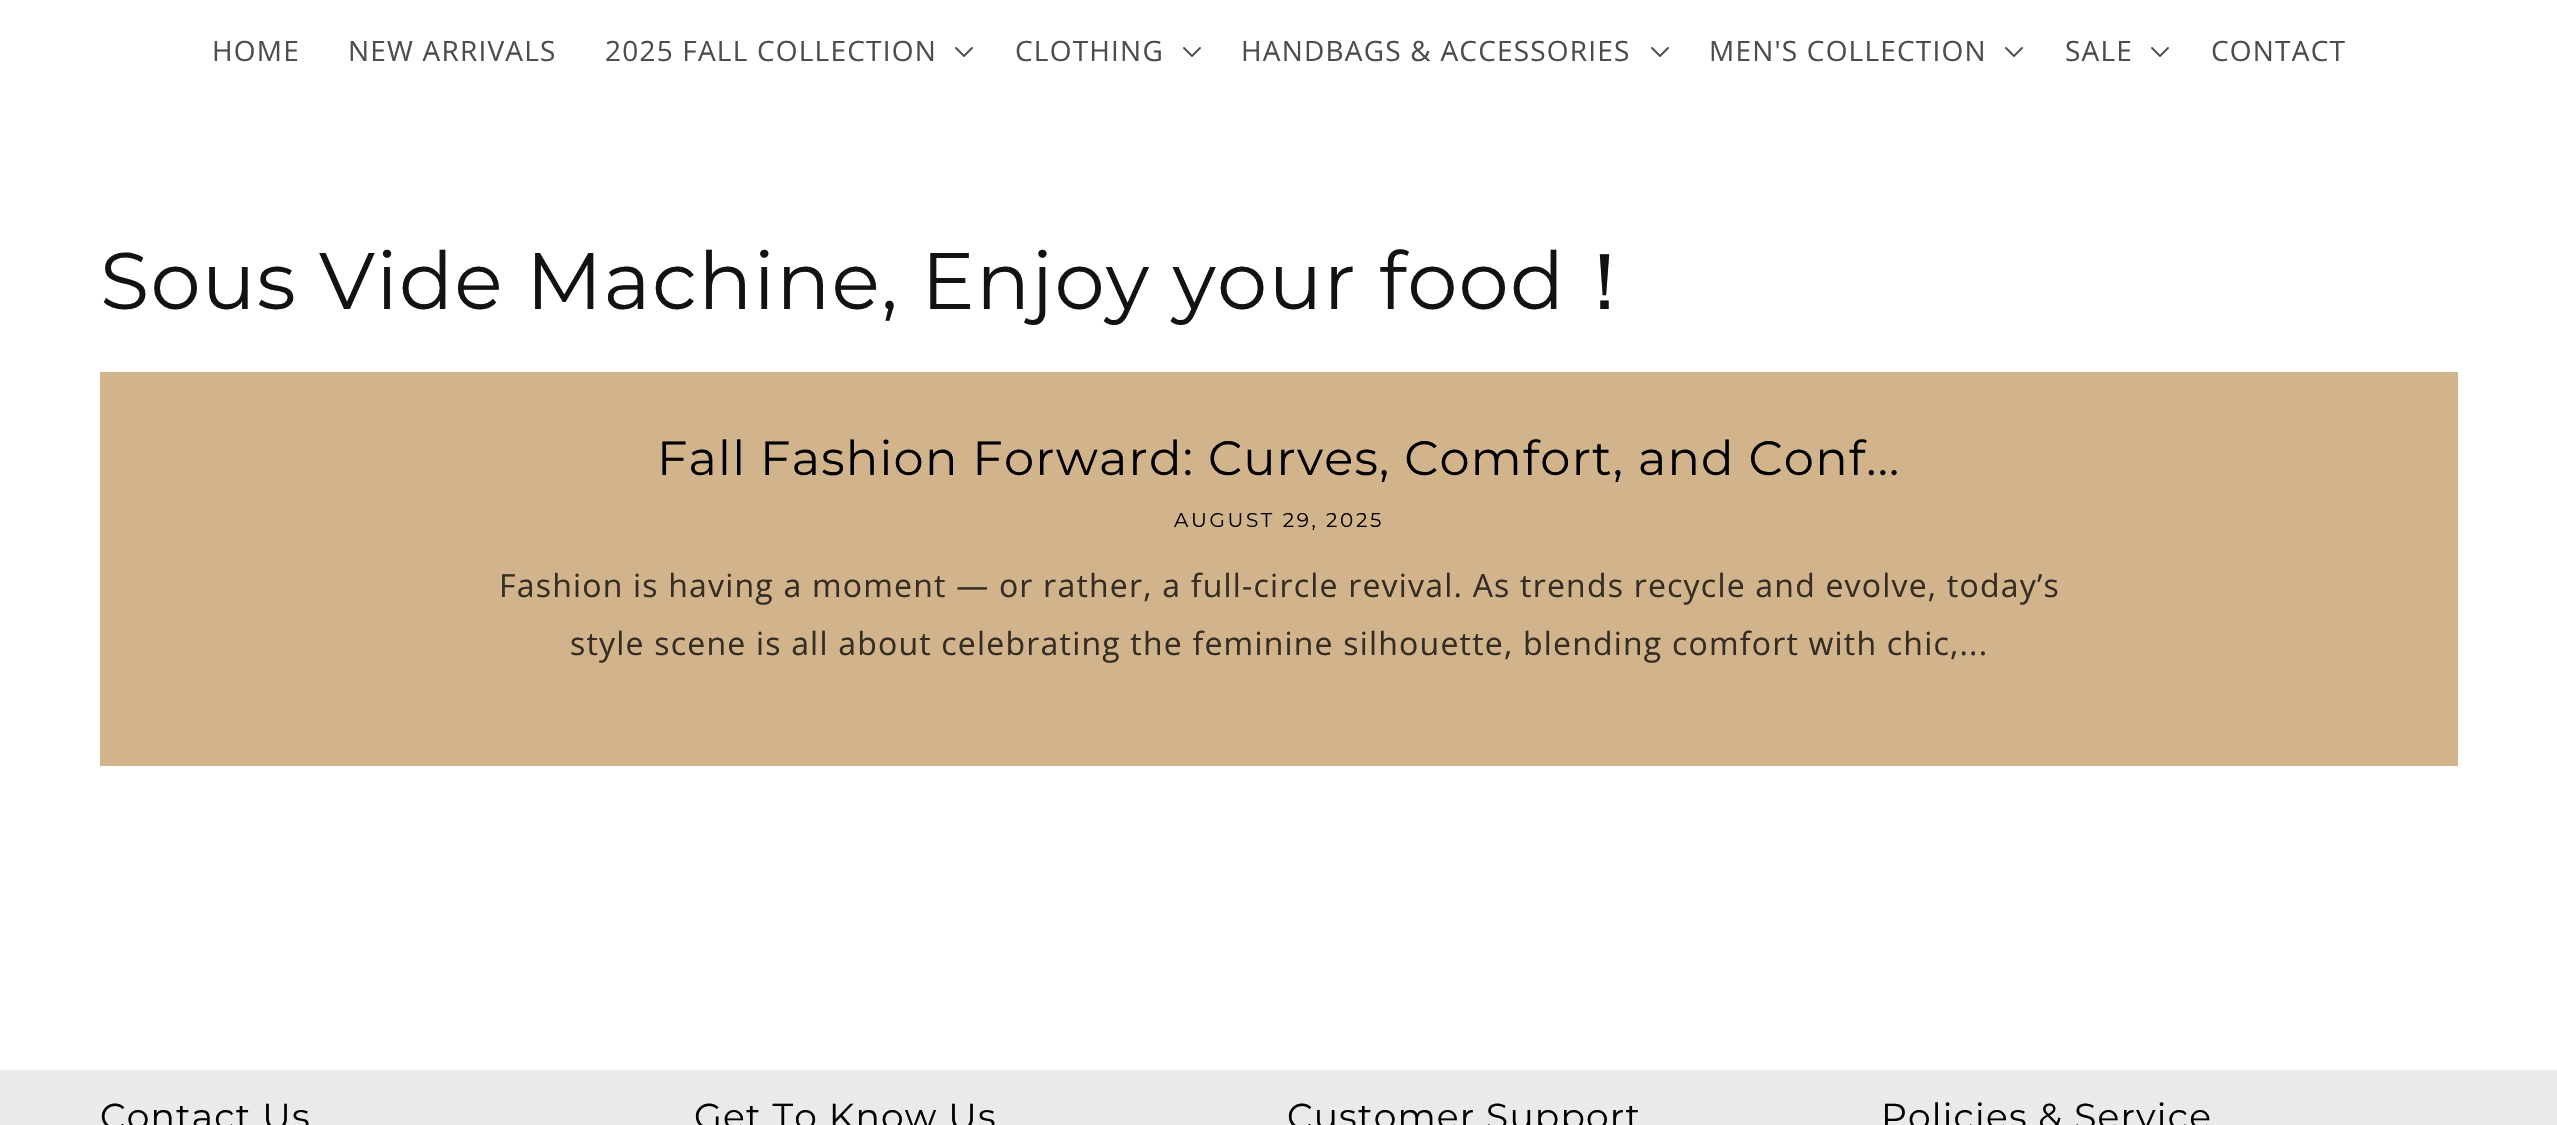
void draw(SkCanvas* canvas) {
    SkPaint paint;
    paint.setAntiAlias(true);
    auto face = [&](const char* family, int weight, float size, bool italic = false) {
        SkFontStyle style(weight, SkFontStyle::kNormal_Width,
            italic ? SkFontStyle::kItalic_Slant : SkFontStyle::kUpright_Slant);
        SkFont result(fontMgr->matchFamilyStyle(family, style), size);
        result.setSubpixel(true);
        return result;
    };
    auto writeSpaced = [&](const char* s, float x, float y, const SkFont& font, const SkPaint& ink, float letter, float word) {
        std::vector<SkGlyphID> glyphs(font.countText(s, strlen(s), SkTextEncoding::kUTF8));
        std::vector<float> xs(glyphs.size());
        font.textToGlyphs(s, strlen(s), SkTextEncoding::kUTF8, glyphs);
        font.getXPos(glyphs, xs, x);
        float extra = 0;
        for (size_t i = 0; i < glyphs.size(); i++) {
            xs[i] += extra;
            extra += letter + word * (glyphs[i] == font.unicharToGlyph(' '));
        }
        canvas->drawTextBlob(SkTextBlob::MakeFromPosHGlyphs(glyphs, xs, y, font), 0, 0, ink);
    };
    auto block = [&](float x, float y, float w, float h, SkColor color) {
        SkPaint ink(SkColor4f::FromColor(color));
        ink.setAntiAlias(true);
        canvas->drawRect(SkRect::MakeXYWH(x, y, w, h), ink);
    };
    auto paste = [&](const char* path, float x, float y, float w, float h) {
        auto image = SkImages::DeferredFromEncodedData(SkData::MakeFromFileName(path));
        canvas->drawImageRect(image, SkRect::MakeXYWH(x, y, w, h), SkSamplingOptions());
    };
    canvas->clear(SK_ColorWHITE);
    auto kFont1 = face("Open Sans", 400, 28);
    paint.setColor(SkColorSetRGB(77, 77, 77));
    writeSpaced("HOME", 212, 61, kFont1, paint, 1.2f, 0);
    writeSpaced("NEW ARRIVALS", 348, 61, kFont1, paint, 1.2f, 0);
    writeSpaced("2025 FALL COLLECTION", 605, 61, kFont1, paint, 1.2f, 0);
    paste("pic1.png", 955, 47, 18, 10);
    writeSpaced("CLOTHING", 1015, 61, kFont1, paint, 1.2f, 0);
    paste("pic1.png", 1183, 47, 18, 10);
    writeSpaced("HANDBAGS & ACCESSORIES", 1241, 61, kFont1, paint, 1.2f, 0);
    paste("pic1.png", 1651, 47, 18, 10);
    writeSpaced("MEN'S COLLECTION", 1709, 61, kFont1, paint, 1.2f, 0);
    paste("pic1.png", 2005, 47, 18, 10);
    writeSpaced("SALE", 2065, 61, kFont1, paint, 1.2f, 0);
    paste("pic1.png", 2151, 47, 18, 10);
    writeSpaced("CONTACT", 2211, 61, kFont1, paint, 1.2f, 0);
    auto kFont2 = face("Montserrat", 400, 80);
    paint.setColor(SkColorSetRGB(18, 18, 18));
    writeSpaced("Sous Vide Machine, Enjoy your food", 100, 309, kFont2, paint, 1.2f, 0);
    auto kFont3 = face("WenQuanYi Zen Hei", 500, 80);
    writeSpaced("！", 1565, 309, kFont3, paint, 1.2f, 0);
    block(100, 372, 2358, 394, SkColorSetRGB(210, 180, 140));
    auto kFont4 = face("Montserrat", 400, 48);
    paint.setColor(SK_ColorBLACK);
    writeSpaced("Fall Fashion Forward: Curves, Comfort, and Conf...", 657, 475, kFont4, paint, 1.2f, 0);
    auto kFont5 = face("Montserrat", 400, 20);
    writeSpaced("AUGUST 29, 2025", 1174, 527, kFont5, paint, 2.6f, 0);
    auto kFont6 = face("Open Sans", 400, 32);
    paint.setColor(SkColorSetRGB(53, 45, 35));
    writeSpaced("Fashion is having a moment — or rather, a full-circle revival. As trends recycle and evolve, today’s", 499, 597, kFont6, paint, 1.2f, 0);
    writeSpaced("style scene is all about celebrating the feminine silhouette, blending comfort with chic,...", 570, 655, kFont6, paint, 1.2f, 0);
    block(0, 1070, 2557, 55, SkColorSetRGB(235, 234, 232));
    auto kFont7 = face("Montserrat", 400, 36);
    paint.setColor(SK_ColorBLACK);
    writeSpaced("Contact Us", 100, 1129, kFont7, paint, 1.2f, 0);
    writeSpaced("Get To Know Us", 694, 1129, kFont7, paint, 1.2f, 0);
    writeSpaced("Customer Support", 1287, 1129, kFont7, paint, 1.2f, 0);
    writeSpaced("Policies & Service", 1881, 1129, kFont7, paint, 1.2f, 0);
}
